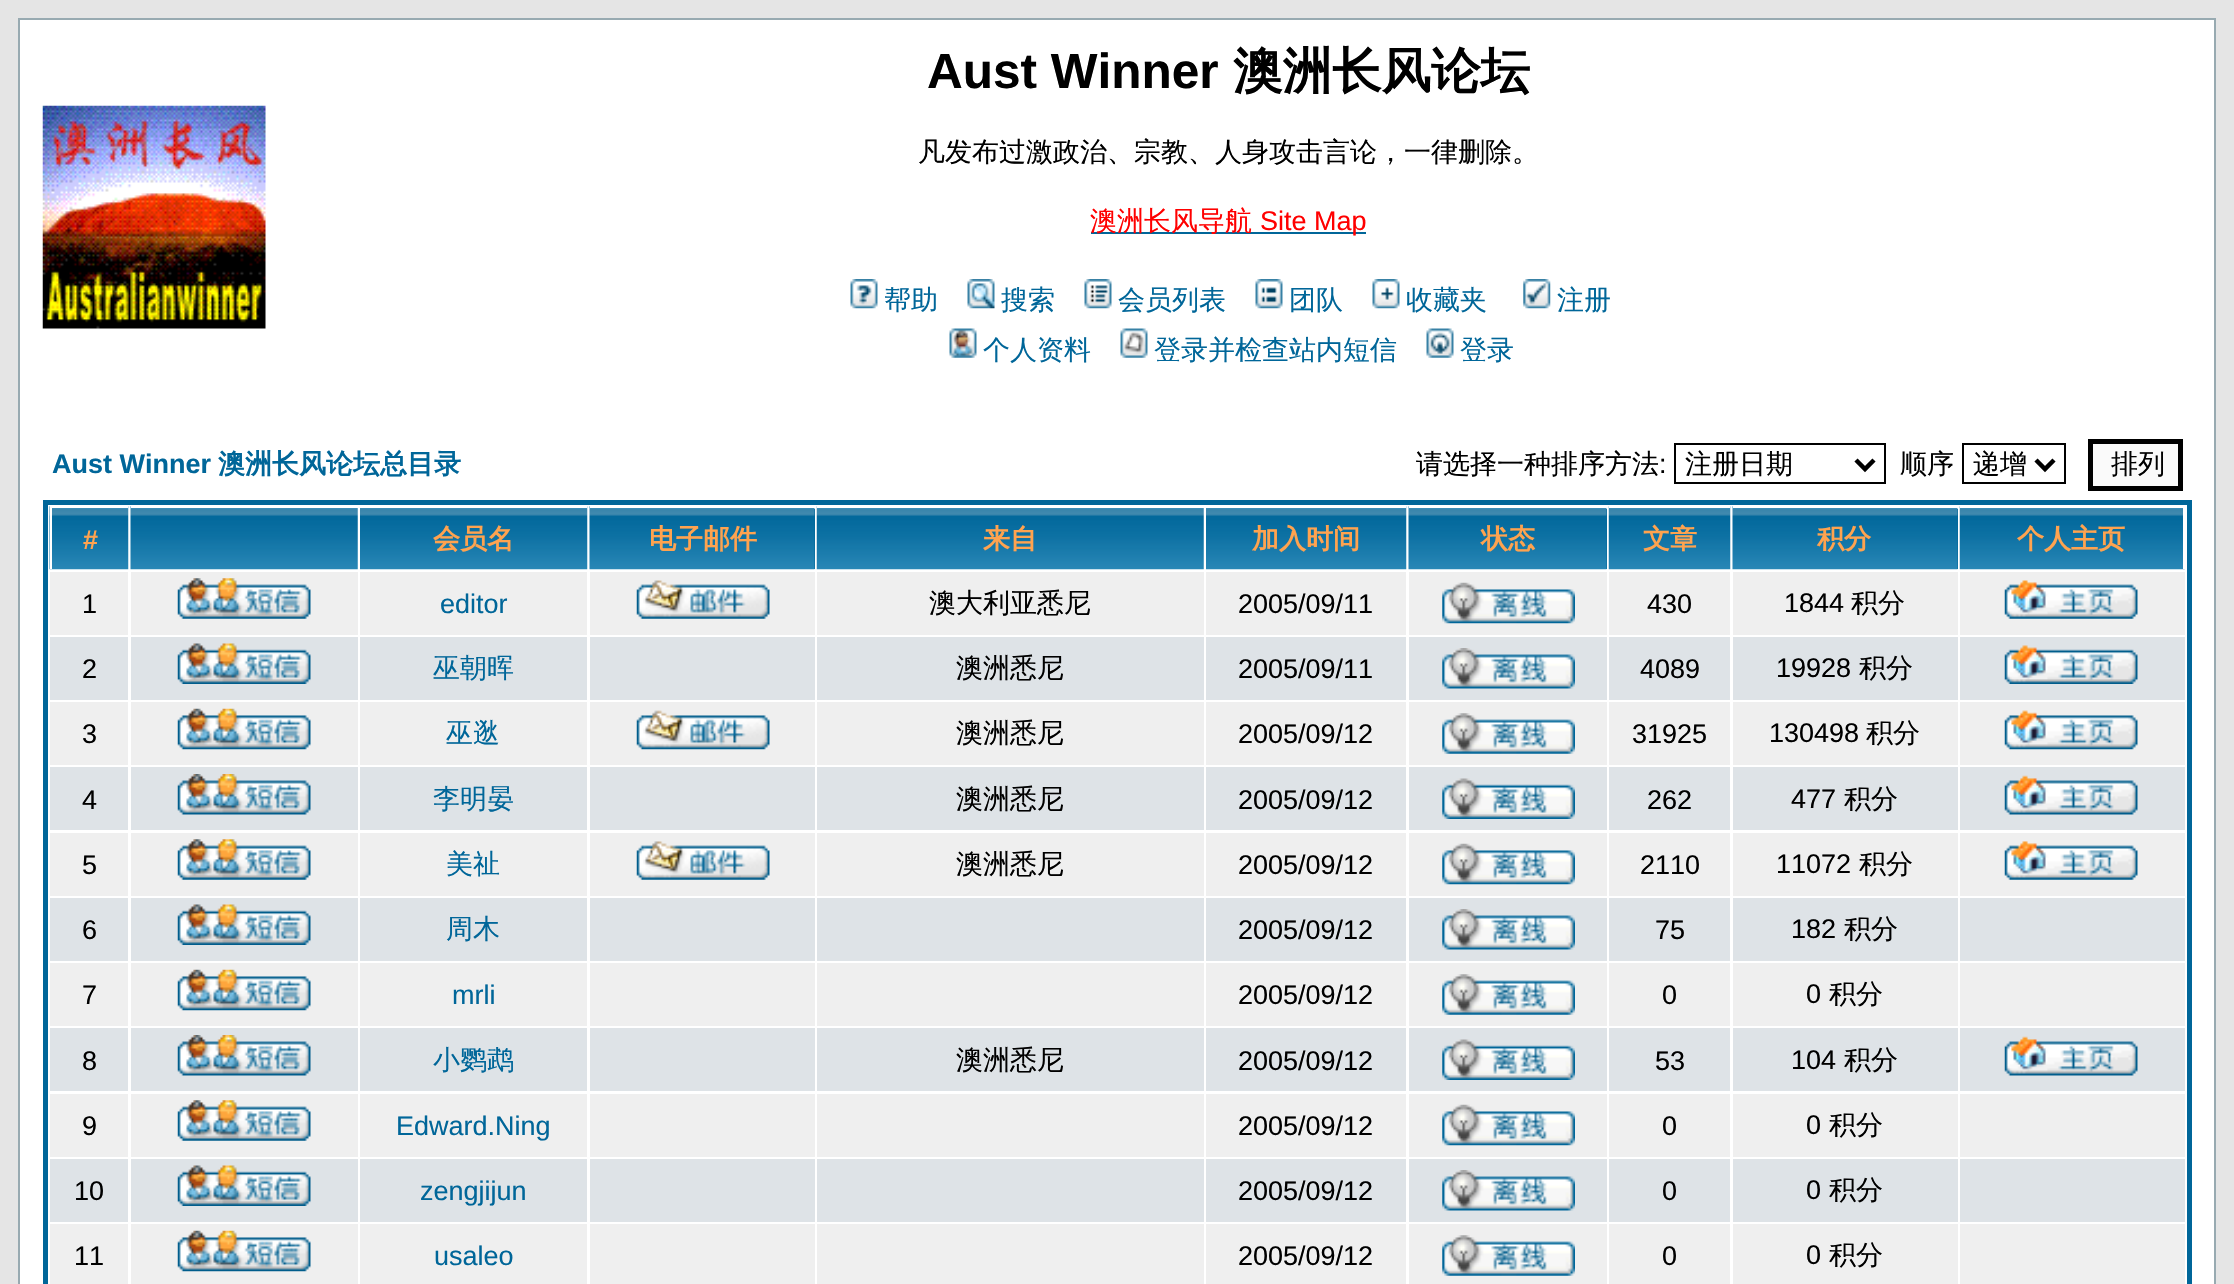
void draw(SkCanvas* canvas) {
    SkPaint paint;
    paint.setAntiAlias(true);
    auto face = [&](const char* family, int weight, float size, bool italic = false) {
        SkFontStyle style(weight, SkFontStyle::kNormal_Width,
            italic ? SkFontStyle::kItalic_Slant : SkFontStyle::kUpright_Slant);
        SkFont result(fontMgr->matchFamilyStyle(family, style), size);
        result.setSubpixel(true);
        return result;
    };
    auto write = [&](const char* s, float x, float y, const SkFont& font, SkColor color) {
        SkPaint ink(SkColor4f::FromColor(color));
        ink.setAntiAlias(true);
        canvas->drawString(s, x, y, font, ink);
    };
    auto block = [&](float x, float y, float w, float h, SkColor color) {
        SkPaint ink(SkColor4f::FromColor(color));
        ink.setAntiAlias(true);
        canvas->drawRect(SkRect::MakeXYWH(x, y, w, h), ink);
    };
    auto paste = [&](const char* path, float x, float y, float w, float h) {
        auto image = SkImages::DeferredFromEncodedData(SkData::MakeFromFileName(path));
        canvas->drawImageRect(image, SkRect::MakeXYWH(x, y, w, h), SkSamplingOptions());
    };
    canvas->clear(SkColorSetRGB(229, 229, 229));
    paint.setColor(SK_ColorWHITE);
    canvas->drawRect(SkRect::MakeXYWH(19, 19, 2196, 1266), paint);
    paint.setStyle(SkPaint::kStroke_Style);
    paint.setStrokeWidth(2);
    paint.setColor(SkColorSetRGB(152, 170, 177));
    canvas->drawRect(SkRect::MakeXYWH(19, 19, 2196, 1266), paint);
    paste("pic1.png", 42, 105, 224, 224);
    auto kFont1 = face("Liberation Sans", 700, 49.5f);
    write("Aust Winner", 927, 88, kFont1, SK_ColorBLACK);
    auto kFont2 = face("WenQuanYi Zen Hei", 700, 49.5f);
    write("澳洲长风论坛", 1233, 88, kFont2, SK_ColorBLACK);
    auto kFont3 = face("WenQuanYi Zen Hei", 500, 27);
    write("凡发布过激政治、宗教、人身攻击言论，一律删除。", 918, 161, kFont3, SK_ColorBLACK);
    block(1091, 232, 275, 2, SkColorSetRGB(0, 102, 153));
    write("澳洲长风导航", 1090, 230, kFont3, SkColorSetRGB(255, 0, 0));
    auto kFont4 = face("Liberation Sans", 400, 27);
    write("Site Map", 1260, 230, kFont4, SkColorSetRGB(255, 0, 0));
    paste("pic2.png", 850, 279, 28, 30);
    write("帮助", 884, 309, kFont3, SkColorSetRGB(0, 102, 153));
    paste("pic3.png", 967, 279, 28, 30);
    write("搜索", 1001, 309, kFont3, SkColorSetRGB(0, 102, 153));
    paste("pic4.png", 1084, 279, 28, 30);
    write("会员列表", 1118, 309, kFont3, SkColorSetRGB(0, 102, 153));
    paste("pic5.png", 1255, 279, 28, 30);
    write("团队", 1289, 309, kFont3, SkColorSetRGB(0, 102, 153));
    paste("pic6.png", 1372, 279, 28, 30);
    write("收藏夹", 1406, 309, kFont3, SkColorSetRGB(0, 102, 153));
    paste("pic7.png", 1523, 279, 28, 30);
    write("注册", 1557, 309, kFont3, SkColorSetRGB(0, 102, 153));
    paste("pic8.png", 949, 328, 28, 30);
    write("个人资料", 983, 359, kFont3, SkColorSetRGB(0, 102, 153));
    paste("pic9.png", 1120, 328, 28, 30);
    write("登录并检查站内短信", 1154, 359, kFont3, SkColorSetRGB(0, 102, 153));
    paste("pic10.png", 1426, 328, 28, 30);
    write("登录", 1460, 359, kFont3, SkColorSetRGB(0, 102, 153));
    auto kFont5 = face("Liberation Sans", 700, 27);
    write("Aust Winner", 52, 473, kFont5, SkColorSetRGB(0, 102, 153));
    auto kFont6 = face("WenQuanYi Zen Hei", 700, 27);
    write("澳洲长风论坛总目录", 218, 473, kFont6, SkColorSetRGB(0, 102, 153));
    write("请选择一种排序方法", 1416, 473, kFont3, SK_ColorBLACK);
    write(":", 1659, 473, kFont4, SK_ColorBLACK);
    paint.setColor(SK_ColorBLACK);
    canvas->drawRect(SkRect::MakeXYWH(1675, 444, 210, 39), paint);
    paint.setStrokeWidth(4.5f);
    canvas->drawPath(SkPathBuilder().moveTo(1856, 460).lineTo(1865, 469).lineTo(1874, 460).detach(), paint);
    write("注册日期", 1685, 473, kFont3, SK_ColorBLACK);
    write("顺序", 1900, 473, kFont3, SK_ColorBLACK);
    paint.setStrokeWidth(2);
    canvas->drawRect(SkRect::MakeXYWH(1963, 444, 102, 39), paint);
    paint.setStrokeWidth(4.5f);
    canvas->drawPath(SkPathBuilder().moveTo(2036, 460).lineTo(2045, 469).lineTo(2054, 460).detach(), paint);
    write("递增", 1973, 473, kFont3, SK_ColorBLACK);
    paint.setStyle(SkPaint::kFill_Style);
    paint.setColor(SkColorSetRGB(250, 250, 250));
    canvas->drawRect(SkRect::MakeXYWH(2090.5f, 441.5f, 90, 47), paint);
    paint.setStyle(SkPaint::kStroke_Style);
    paint.setStrokeWidth(5);
    paint.setColor(SK_ColorBLACK);
    canvas->drawRect(SkRect::MakeXYWH(2090.5f, 441.5f, 90, 47), paint);
    write("排列", 2111, 473, kFont3, SK_ColorBLACK);
    paint.setColor(SkColorSetRGB(0, 102, 153));
    canvas->drawRect(SkRect::MakeXYWH(45.5f, 502.5f, 2144, 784), paint);
    paste("pic11.png", 49, 506, 80, 64);
    block(50, 506, 78, 2, SK_ColorWHITE);
    block(50, 506, 2, 63, SK_ColorWHITE);
    write("#", 83, 549, kFont5, SkColorSetRGB(255, 163, 79));
    paste("pic12.png", 130, 506, 228, 64);
    block(131, 506, 227, 2, SK_ColorWHITE);
    paste("pic13.png", 360, 506, 228, 64);
    block(360, 506, 227, 2, SK_ColorWHITE);
    write("会员名", 433, 548, kFont6, SkColorSetRGB(255, 163, 79));
    block(814, 509, 1, 60, SkColorSetRGB(0, 102, 153));
    paste("pic14.png", 589, 506, 226, 64);
    block(590, 506, 225, 2, SK_ColorWHITE);
    write("电子邮件", 649, 548, kFont6, SkColorSetRGB(255, 163, 79));
    paste("pic15.png", 816, 506, 388, 64);
    block(817, 506, 387, 2, SK_ColorWHITE);
    write("来自", 983, 548, kFont6, SkColorSetRGB(255, 163, 79));
    paste("pic16.png", 1206, 506, 201, 64);
    block(1206, 506, 200, 2, SK_ColorWHITE);
    write("加入时间", 1252, 548, kFont6, SkColorSetRGB(255, 163, 79));
    block(1606, 509, 1, 60, SkColorSetRGB(0, 102, 153));
    paste("pic17.png", 1408, 506, 199, 64);
    block(1409, 506, 198, 2, SK_ColorWHITE);
    write("状态", 1481, 548, kFont6, SkColorSetRGB(255, 163, 79));
    paste("pic18.png", 1608, 506, 123, 64);
    block(1609, 506, 121, 2, SK_ColorWHITE);
    write("文章", 1643, 548, kFont6, SkColorSetRGB(255, 163, 79));
    block(1957, 509, 1, 60, SkColorSetRGB(0, 102, 153));
    paste("pic14.png", 1732, 506, 226, 64);
    block(1733, 506, 225, 2, SK_ColorWHITE);
    write("积分", 1817, 548, kFont6, SkColorSetRGB(255, 163, 79));
    paste("pic19.png", 1959, 506, 226, 64);
    block(1960, 506, 225, 2, SK_ColorWHITE);
    block(2183, 506, 2, 63, SK_ColorWHITE);
    write("个人主页", 2017, 548, kFont6, SkColorSetRGB(255, 163, 79));
    block(50, 572, 78, 63, SkColorSetRGB(239, 239, 239));
    write("1", 82, 613, kFont4, SK_ColorBLACK);
    block(131, 572, 227, 63, SkColorSetRGB(239, 239, 239));
    paste("pic20.png", 177, 578, 134, 41);
    block(360, 572, 227, 63, SkColorSetRGB(239, 239, 239));
    write("editor", 440, 613, kFont4, SkColorSetRGB(0, 102, 153));
    block(590, 572, 225, 63, SkColorSetRGB(239, 239, 239));
    paste("pic21.png", 636, 580, 134, 39);
    block(817, 572, 387, 63, SkColorSetRGB(239, 239, 239));
    write("澳大利亚悉尼", 929, 612, kFont3, SK_ColorBLACK);
    block(1206, 572, 200, 63, SkColorSetRGB(239, 239, 239));
    write("2005/09/11", 1238, 613, kFont4, SK_ColorBLACK);
    block(1409, 572, 198, 63, SkColorSetRGB(239, 239, 239));
    paste("pic22.png", 1442, 582, 133, 42);
    block(1609, 572, 121, 63, SkColorSetRGB(239, 239, 239));
    write("430", 1647, 613, kFont4, SK_ColorBLACK);
    block(1733, 572, 225, 63, SkColorSetRGB(239, 239, 239));
    write("1844", 1784, 612, kFont4, SK_ColorBLACK);
    write("积分", 1851, 612, kFont3, SK_ColorBLACK);
    block(1960, 572, 225, 63, SkColorSetRGB(239, 239, 239));
    paste("pic23.png", 2004, 580, 134, 39);
    block(50, 637, 78, 63, SkColorSetRGB(222, 227, 231));
    write("2", 82, 678, kFont4, SK_ColorBLACK);
    block(131, 637, 227, 63, SkColorSetRGB(222, 227, 231));
    paste("pic24.png", 177, 643, 134, 41);
    block(360, 637, 227, 63, SkColorSetRGB(222, 227, 231));
    write("巫朝晖", 433, 677, kFont3, SkColorSetRGB(0, 102, 153));
    block(590, 637, 225, 63, SkColorSetRGB(222, 227, 231));
    block(817, 637, 387, 63, SkColorSetRGB(222, 227, 231));
    write("澳洲悉尼", 956, 677, kFont3, SK_ColorBLACK);
    block(1206, 637, 200, 63, SkColorSetRGB(222, 227, 231));
    write("2005/09/11", 1238, 678, kFont4, SK_ColorBLACK);
    block(1409, 637, 198, 63, SkColorSetRGB(222, 227, 231));
    paste("pic25.png", 1442, 648, 133, 41);
    block(1609, 637, 121, 63, SkColorSetRGB(222, 227, 231));
    write("4089", 1640, 678, kFont4, SK_ColorBLACK);
    block(1733, 637, 225, 63, SkColorSetRGB(222, 227, 231));
    write("19928", 1776, 677, kFont4, SK_ColorBLACK);
    write("积分", 1859, 677, kFont3, SK_ColorBLACK);
    block(1960, 637, 225, 63, SkColorSetRGB(222, 227, 231));
    paste("pic26.png", 2004, 645, 134, 39);
    block(50, 702, 78, 63, SkColorSetRGB(239, 239, 239));
    write("3", 82, 743, kFont4, SK_ColorBLACK);
    block(131, 702, 227, 63, SkColorSetRGB(239, 239, 239));
    paste("pic27.png", 177, 708, 134, 42);
    block(360, 702, 227, 63, SkColorSetRGB(239, 239, 239));
    write("巫逖", 446, 742, kFont3, SkColorSetRGB(0, 102, 153));
    block(590, 702, 225, 63, SkColorSetRGB(239, 239, 239));
    paste("pic28.png", 636, 710, 134, 40);
    block(817, 702, 387, 63, SkColorSetRGB(239, 239, 239));
    write("澳洲悉尼", 956, 742, kFont3, SK_ColorBLACK);
    block(1206, 702, 200, 63, SkColorSetRGB(239, 239, 239));
    write("2005/09/12", 1238, 743, kFont4, SK_ColorBLACK);
    block(1409, 702, 198, 63, SkColorSetRGB(239, 239, 239));
    paste("pic29.png", 1442, 713, 133, 41);
    block(1609, 702, 121, 63, SkColorSetRGB(239, 239, 239));
    write("31925", 1632, 743, kFont4, SK_ColorBLACK);
    block(1733, 702, 225, 63, SkColorSetRGB(239, 239, 239));
    write("130498", 1769, 742, kFont4, SK_ColorBLACK);
    write("积分", 1866, 742, kFont3, SK_ColorBLACK);
    block(1960, 702, 225, 63, SkColorSetRGB(239, 239, 239));
    paste("pic30.png", 2004, 710, 134, 40);
    block(50, 767, 78, 63, SkColorSetRGB(222, 227, 231));
    write("4", 82, 809, kFont4, SK_ColorBLACK);
    block(131, 767, 227, 63, SkColorSetRGB(222, 227, 231));
    paste("pic31.png", 177, 774, 134, 41);
    block(360, 767, 227, 63, SkColorSetRGB(222, 227, 231));
    write("李明晏", 433, 808, kFont3, SkColorSetRGB(0, 102, 153));
    block(590, 767, 225, 63, SkColorSetRGB(222, 227, 231));
    block(817, 767, 387, 63, SkColorSetRGB(222, 227, 231));
    write("澳洲悉尼", 956, 808, kFont3, SK_ColorBLACK);
    block(1206, 767, 200, 63, SkColorSetRGB(222, 227, 231));
    write("2005/09/12", 1238, 809, kFont4, SK_ColorBLACK);
    block(1409, 767, 198, 63, SkColorSetRGB(222, 227, 231));
    paste("pic32.png", 1442, 778, 133, 41);
    block(1609, 767, 121, 63, SkColorSetRGB(222, 227, 231));
    write("262", 1647, 809, kFont4, SK_ColorBLACK);
    block(1733, 767, 225, 63, SkColorSetRGB(222, 227, 231));
    write("477", 1791, 808, kFont4, SK_ColorBLACK);
    write("积分", 1844, 808, kFont3, SK_ColorBLACK);
    block(1960, 767, 225, 63, SkColorSetRGB(222, 227, 231));
    paste("pic33.png", 2004, 775, 134, 40);
    block(50, 833, 78, 63, SkColorSetRGB(239, 239, 239));
    write("5", 82, 874, kFont4, SK_ColorBLACK);
    block(131, 833, 227, 63, SkColorSetRGB(239, 239, 239));
    paste("pic34.png", 177, 839, 134, 41);
    block(360, 833, 227, 63, SkColorSetRGB(239, 239, 239));
    write("美祉", 446, 873, kFont3, SkColorSetRGB(0, 102, 153));
    block(590, 833, 225, 63, SkColorSetRGB(239, 239, 239));
    paste("pic35.png", 636, 841, 134, 39);
    block(817, 833, 387, 63, SkColorSetRGB(239, 239, 239));
    write("澳洲悉尼", 956, 873, kFont3, SK_ColorBLACK);
    block(1206, 833, 200, 63, SkColorSetRGB(239, 239, 239));
    write("2005/09/12", 1238, 874, kFont4, SK_ColorBLACK);
    block(1409, 833, 198, 63, SkColorSetRGB(239, 239, 239));
    paste("pic22.png", 1442, 843, 133, 42);
    block(1609, 833, 121, 63, SkColorSetRGB(239, 239, 239));
    write("2110", 1640, 874, kFont4, SK_ColorBLACK);
    block(1733, 833, 225, 63, SkColorSetRGB(239, 239, 239));
    write("11072", 1776, 873, kFont4, SK_ColorBLACK);
    write("积分", 1859, 873, kFont3, SK_ColorBLACK);
    block(1960, 833, 225, 63, SkColorSetRGB(239, 239, 239));
    paste("pic36.png", 2004, 841, 134, 39);
    block(50, 898, 78, 63, SkColorSetRGB(222, 227, 231));
    write("6", 82, 939, kFont4, SK_ColorBLACK);
    block(131, 898, 227, 63, SkColorSetRGB(222, 227, 231));
    paste("pic24.png", 177, 904, 134, 41);
    block(360, 898, 227, 63, SkColorSetRGB(222, 227, 231));
    write("周木", 446, 938, kFont3, SkColorSetRGB(0, 102, 153));
    block(590, 898, 225, 63, SkColorSetRGB(222, 227, 231));
    block(817, 898, 387, 63, SkColorSetRGB(222, 227, 231));
    block(1206, 898, 200, 63, SkColorSetRGB(222, 227, 231));
    write("2005/09/12", 1238, 939, kFont4, SK_ColorBLACK);
    block(1409, 898, 198, 63, SkColorSetRGB(222, 227, 231));
    paste("pic25.png", 1442, 909, 133, 41);
    block(1609, 898, 121, 63, SkColorSetRGB(222, 227, 231));
    write("75", 1655, 939, kFont4, SK_ColorBLACK);
    block(1733, 898, 225, 63, SkColorSetRGB(222, 227, 231));
    write("182", 1791, 938, kFont4, SK_ColorBLACK);
    write("积分", 1844, 938, kFont3, SK_ColorBLACK);
    block(1960, 898, 225, 63, SkColorSetRGB(222, 227, 231));
    block(50, 963, 78, 63, SkColorSetRGB(239, 239, 239));
    write("7", 82, 1004, kFont4, SK_ColorBLACK);
    block(131, 963, 227, 63, SkColorSetRGB(239, 239, 239));
    paste("pic27.png", 177, 969, 134, 42);
    block(360, 963, 227, 63, SkColorSetRGB(239, 239, 239));
    write("mrli", 452, 1004, kFont4, SkColorSetRGB(0, 102, 153));
    block(590, 963, 225, 63, SkColorSetRGB(239, 239, 239));
    block(817, 963, 387, 63, SkColorSetRGB(239, 239, 239));
    block(1206, 963, 200, 63, SkColorSetRGB(239, 239, 239));
    write("2005/09/12", 1238, 1004, kFont4, SK_ColorBLACK);
    block(1409, 963, 198, 63, SkColorSetRGB(239, 239, 239));
    paste("pic29.png", 1442, 974, 133, 41);
    block(1609, 963, 121, 63, SkColorSetRGB(239, 239, 239));
    write("0", 1662, 1004, kFont4, SK_ColorBLACK);
    block(1733, 963, 225, 63, SkColorSetRGB(239, 239, 239));
    write("0", 1806, 1003, kFont4, SK_ColorBLACK);
    write("积分", 1829, 1003, kFont3, SK_ColorBLACK);
    block(1960, 963, 225, 63, SkColorSetRGB(239, 239, 239));
    block(50, 1028, 78, 63, SkColorSetRGB(222, 227, 231));
    write("8", 82, 1070, kFont4, SK_ColorBLACK);
    block(131, 1028, 227, 63, SkColorSetRGB(222, 227, 231));
    paste("pic37.png", 177, 1035, 134, 41);
    block(360, 1028, 227, 63, SkColorSetRGB(222, 227, 231));
    write("小鹦鹉", 433, 1069, kFont3, SkColorSetRGB(0, 102, 153));
    block(590, 1028, 225, 63, SkColorSetRGB(222, 227, 231));
    block(817, 1028, 387, 63, SkColorSetRGB(222, 227, 231));
    write("澳洲悉尼", 956, 1069, kFont3, SK_ColorBLACK);
    block(1206, 1028, 200, 63, SkColorSetRGB(222, 227, 231));
    write("2005/09/12", 1238, 1070, kFont4, SK_ColorBLACK);
    block(1409, 1028, 198, 63, SkColorSetRGB(222, 227, 231));
    paste("pic38.png", 1442, 1039, 133, 41);
    block(1609, 1028, 121, 63, SkColorSetRGB(222, 227, 231));
    write("53", 1655, 1070, kFont4, SK_ColorBLACK);
    block(1733, 1028, 225, 63, SkColorSetRGB(222, 227, 231));
    write("104", 1791, 1069, kFont4, SK_ColorBLACK);
    write("积分", 1844, 1069, kFont3, SK_ColorBLACK);
    block(1960, 1028, 225, 63, SkColorSetRGB(222, 227, 231));
    paste("pic39.png", 2004, 1036, 134, 40);
    block(50, 1094, 78, 63, SkColorSetRGB(239, 239, 239));
    write("9", 82, 1135, kFont4, SK_ColorBLACK);
    block(131, 1094, 227, 63, SkColorSetRGB(239, 239, 239));
    paste("pic34.png", 177, 1100, 134, 41);
    block(360, 1094, 227, 63, SkColorSetRGB(239, 239, 239));
    write("Edward.Ning", 396, 1135, kFont4, SkColorSetRGB(0, 102, 153));
    block(590, 1094, 225, 63, SkColorSetRGB(239, 239, 239));
    block(817, 1094, 387, 63, SkColorSetRGB(239, 239, 239));
    block(1206, 1094, 200, 63, SkColorSetRGB(239, 239, 239));
    write("2005/09/12", 1238, 1135, kFont4, SK_ColorBLACK);
    block(1409, 1094, 198, 63, SkColorSetRGB(239, 239, 239));
    paste("pic22.png", 1442, 1104, 133, 42);
    block(1609, 1094, 121, 63, SkColorSetRGB(239, 239, 239));
    write("0", 1662, 1135, kFont4, SK_ColorBLACK);
    block(1733, 1094, 225, 63, SkColorSetRGB(239, 239, 239));
    write("0", 1806, 1134, kFont4, SK_ColorBLACK);
    write("积分", 1829, 1134, kFont3, SK_ColorBLACK);
    block(1960, 1094, 225, 63, SkColorSetRGB(239, 239, 239));
    block(50, 1159, 78, 63, SkColorSetRGB(222, 227, 231));
    write("10", 74, 1200, kFont4, SK_ColorBLACK);
    block(131, 1159, 227, 63, SkColorSetRGB(222, 227, 231));
    paste("pic24.png", 177, 1165, 134, 41);
    block(360, 1159, 227, 63, SkColorSetRGB(222, 227, 231));
    write("zengjijun", 420, 1200, kFont4, SkColorSetRGB(0, 102, 153));
    block(590, 1159, 225, 63, SkColorSetRGB(222, 227, 231));
    block(817, 1159, 387, 63, SkColorSetRGB(222, 227, 231));
    block(1206, 1159, 200, 63, SkColorSetRGB(222, 227, 231));
    write("2005/09/12", 1238, 1200, kFont4, SK_ColorBLACK);
    block(1409, 1159, 198, 63, SkColorSetRGB(222, 227, 231));
    paste("pic25.png", 1442, 1170, 133, 41);
    block(1609, 1159, 121, 63, SkColorSetRGB(222, 227, 231));
    write("0", 1662, 1200, kFont4, SK_ColorBLACK);
    block(1733, 1159, 225, 63, SkColorSetRGB(222, 227, 231));
    write("0", 1806, 1199, kFont4, SK_ColorBLACK);
    write("积分", 1829, 1199, kFont3, SK_ColorBLACK);
    block(1960, 1159, 225, 63, SkColorSetRGB(222, 227, 231));
    block(50, 1224, 78, 60, SkColorSetRGB(239, 239, 239));
    write("11", 74, 1265, kFont4, SK_ColorBLACK);
    block(131, 1224, 227, 60, SkColorSetRGB(239, 239, 239));
    paste("pic27.png", 177, 1230, 134, 42);
    block(360, 1224, 227, 60, SkColorSetRGB(239, 239, 239));
    write("usaleo", 434, 1265, kFont4, SkColorSetRGB(0, 102, 153));
    block(590, 1224, 225, 60, SkColorSetRGB(239, 239, 239));
    block(817, 1224, 387, 60, SkColorSetRGB(239, 239, 239));
    block(1206, 1224, 200, 60, SkColorSetRGB(239, 239, 239));
    write("2005/09/12", 1238, 1265, kFont4, SK_ColorBLACK);
    block(1409, 1224, 198, 60, SkColorSetRGB(239, 239, 239));
    paste("pic29.png", 1442, 1235, 133, 41);
    block(1609, 1224, 121, 60, SkColorSetRGB(239, 239, 239));
    write("0", 1662, 1265, kFont4, SK_ColorBLACK);
    block(1733, 1224, 225, 60, SkColorSetRGB(239, 239, 239));
    write("0", 1806, 1264, kFont4, SK_ColorBLACK);
    write("积分", 1829, 1264, kFont3, SK_ColorBLACK);
    block(1960, 1224, 225, 60, SkColorSetRGB(239, 239, 239));
}
